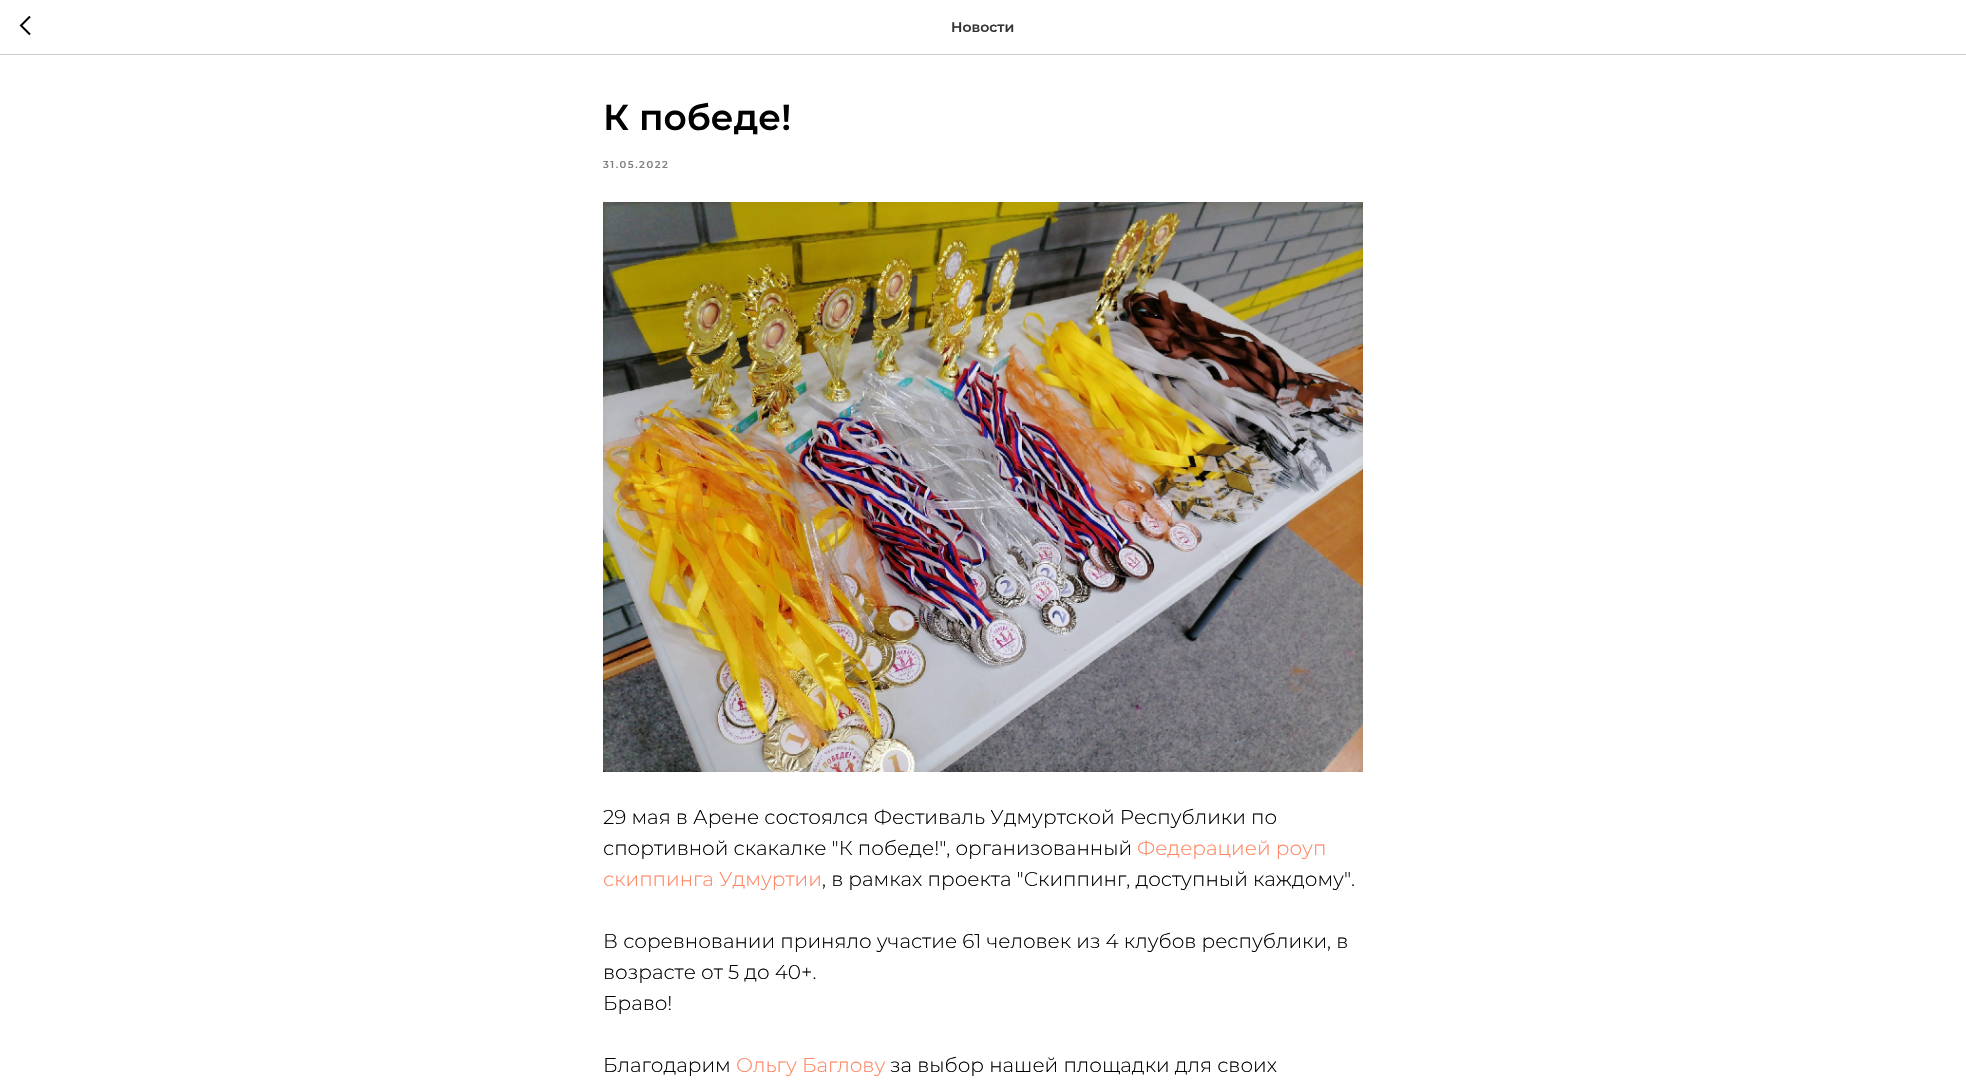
void draw(SkCanvas* canvas) {
    SkPaint paint;
    paint.setAntiAlias(true);
    auto face = [&](const char* family, int weight, float size, bool italic = false) {
        SkFontStyle style(weight, SkFontStyle::kNormal_Width,
            italic ? SkFontStyle::kItalic_Slant : SkFontStyle::kUpright_Slant);
        SkFont result(fontMgr->matchFamilyStyle(family, style), size);
        result.setSubpixel(true);
        return result;
    };
    auto write = [&](const char* s, float x, float y, const SkFont& font, SkColor color) {
        SkPaint ink(SkColor4f::FromColor(color));
        ink.setAntiAlias(true);
        canvas->drawString(s, x, y, font, ink);
    };
    auto writeSpaced = [&](const char* s, float x, float y, const SkFont& font, const SkPaint& ink, float letter, float word) {
        std::vector<SkGlyphID> glyphs(font.countText(s, strlen(s), SkTextEncoding::kUTF8));
        std::vector<float> xs(glyphs.size());
        font.textToGlyphs(s, strlen(s), SkTextEncoding::kUTF8, glyphs);
        font.getXPos(glyphs, xs, x);
        float extra = 0;
        for (size_t i = 0; i < glyphs.size(); i++) {
            xs[i] += extra;
            extra += letter + word * (glyphs[i] == font.unicharToGlyph(' '));
        }
        canvas->drawTextBlob(SkTextBlob::MakeFromPosHGlyphs(glyphs, xs, y, font), 0, 0, ink);
    };
    auto block = [&](float x, float y, float w, float h, SkColor color) {
        SkPaint ink(SkColor4f::FromColor(color));
        ink.setAntiAlias(true);
        canvas->drawRect(SkRect::MakeXYWH(x, y, w, h), ink);
    };
    auto paste = [&](const char* path, float x, float y, float w, float h) {
        auto image = SkImages::DeferredFromEncodedData(SkData::MakeFromFileName(path));
        canvas->drawImageRect(image, SkRect::MakeXYWH(x, y, w, h), SkSamplingOptions());
    };
    canvas->clear(SK_ColorWHITE);
    block(0, 54, 1966, 1, SkColorSetRGB(204, 204, 204));
    paint.setStyle(SkPaint::kStroke_Style);
    paint.setStrokeWidth(2);
    paint.setColor(SK_ColorBLACK);
    canvas->drawPath(SkPathBuilder().moveTo(30, 34.5f).lineTo(21, 25.5f).lineTo(30, 16.5f).detach(), paint);
    auto kFont1 = face("Montserrat", 600, 14);
    write("Новости", 951, 32, kFont1, SkColorSetRGB(51, 51, 51));
    auto kFont2 = face("Montserrat", 600, 36);
    write("К победе!", 603, 130, kFont2, SK_ColorBLACK);
    auto kFont3 = face("Montserrat", 600, 10);
    paint.setStyle(SkPaint::kFill_Style);
    paint.setColor(SkColorSetRGB(128, 128, 128));
    writeSpaced("31.05.2022", 603, 168, kFont3, paint, 1.5f, 0);
    paste("pic1.png", 603, 202, 760, 570);
    auto kFont4 = face("Montserrat", 300, 20);
    write("29 мая в Арене состоялся Фестиваль Удмуртской Республики по", 603, 824, kFont4, SK_ColorBLACK);
    write("спортивной скакалке \"К победе!\", организованный", 603, 855, kFont4, SK_ColorBLACK);
    write("Федерацией роуп", 1137, 855, kFont4, SkColorSetRGB(255, 133, 98));
    write("скиппинга Удмуртии", 603, 886, kFont4, SkColorSetRGB(255, 133, 98));
    write(", в рамках проекта \"Скиппинг, доступный каждому\".", 822, 886, kFont4, SK_ColorBLACK);
    write("В соревновании приняло участие 61 человек из 4 клубов республики, в", 603, 948, kFont4, SK_ColorBLACK);
    write("возрасте от 5 до 40+.", 603, 979, kFont4, SK_ColorBLACK);
    write("Браво!", 603, 1010, kFont4, SK_ColorBLACK);
    write("Благодарим", 603, 1072, kFont4, SK_ColorBLACK);
    write("Ольгу Баглову", 736, 1072, kFont4, SkColorSetRGB(255, 133, 98));
    write("за выбор нашей площадки для своих", 890, 1072, kFont4, SK_ColorBLACK);
}
